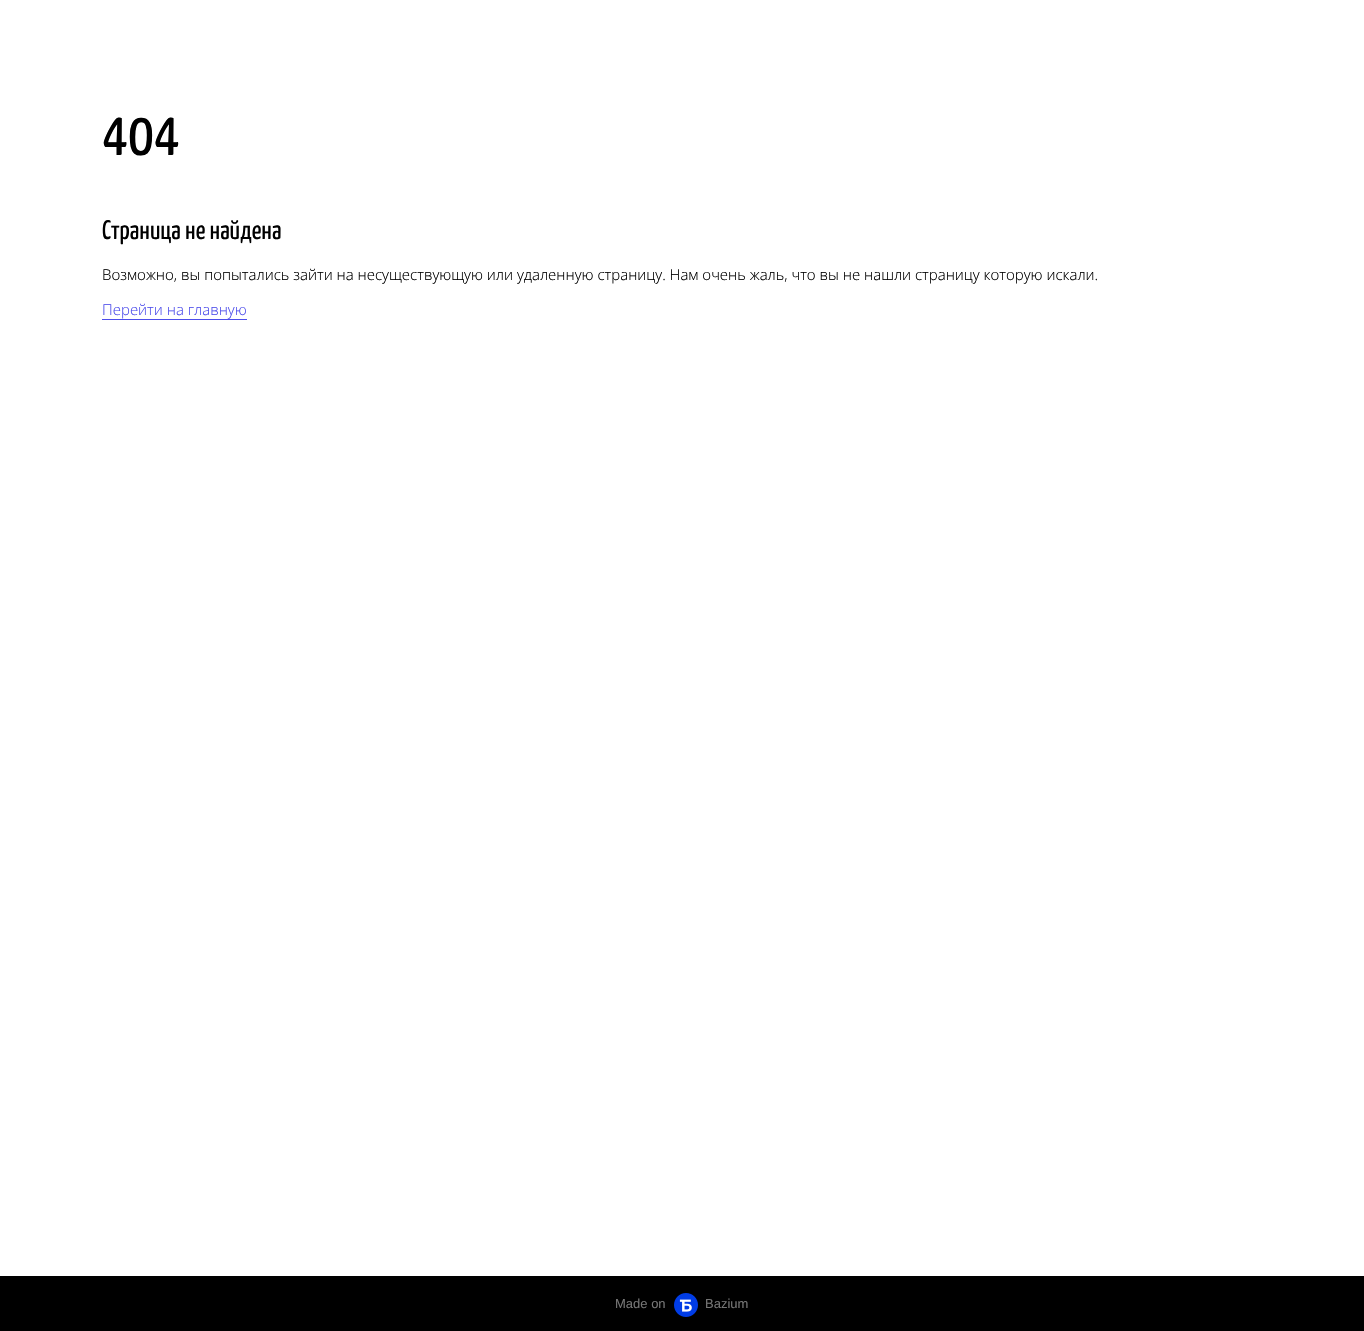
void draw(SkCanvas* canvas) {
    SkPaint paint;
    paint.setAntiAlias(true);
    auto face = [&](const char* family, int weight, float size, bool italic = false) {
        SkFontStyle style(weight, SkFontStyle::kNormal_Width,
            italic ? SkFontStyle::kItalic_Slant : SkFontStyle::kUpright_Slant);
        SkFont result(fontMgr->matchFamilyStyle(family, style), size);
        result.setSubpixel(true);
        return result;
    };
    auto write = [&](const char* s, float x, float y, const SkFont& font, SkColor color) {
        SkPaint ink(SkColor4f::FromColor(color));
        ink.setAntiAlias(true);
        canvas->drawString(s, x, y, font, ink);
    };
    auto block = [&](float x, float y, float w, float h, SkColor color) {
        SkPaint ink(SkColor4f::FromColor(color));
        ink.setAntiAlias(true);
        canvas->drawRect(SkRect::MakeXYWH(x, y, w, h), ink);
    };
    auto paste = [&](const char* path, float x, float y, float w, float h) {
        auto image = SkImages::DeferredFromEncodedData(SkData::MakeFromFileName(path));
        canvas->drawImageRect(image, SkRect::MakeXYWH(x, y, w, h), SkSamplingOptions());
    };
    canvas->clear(SK_ColorWHITE);
    auto kFont1 = face("Yanone Kaffeesatz", 400, 62);
    write("404", 102, 155, kFont1, SK_ColorBLACK);
    auto kFont2 = face("Yanone Kaffeesatz", 400, 26.75f);
    write("Страница не найдена", 102, 239, kFont2, SK_ColorBLACK);
    auto kFont3 = face("Open Sans", 300, 15);
    write("Возможно, вы попытались зайти на несуществующую или удаленную страницу. Нам очень жаль, что вы не нашли страницу которую искали.", 102, 280, kFont3, SK_ColorBLACK);
    write("Перейти на главную", 102, 315, kFont3, SkColorSetRGB(77, 77, 235));
    block(102, 319, 145, 1, SkColorSetRGB(77, 77, 235));
    block(0, 1276, 1364, 55, SK_ColorBLACK);
    auto kFont4 = face("Liberation Sans", 400, 13);
    write("Made on", 615, 1308, kFont4, SkColorSetRGB(117, 117, 117));
    paste("pic1.png", 674, 1293, 24, 24);
    write("Bazium", 705, 1308, kFont4, SkColorSetRGB(117, 117, 117));
}
